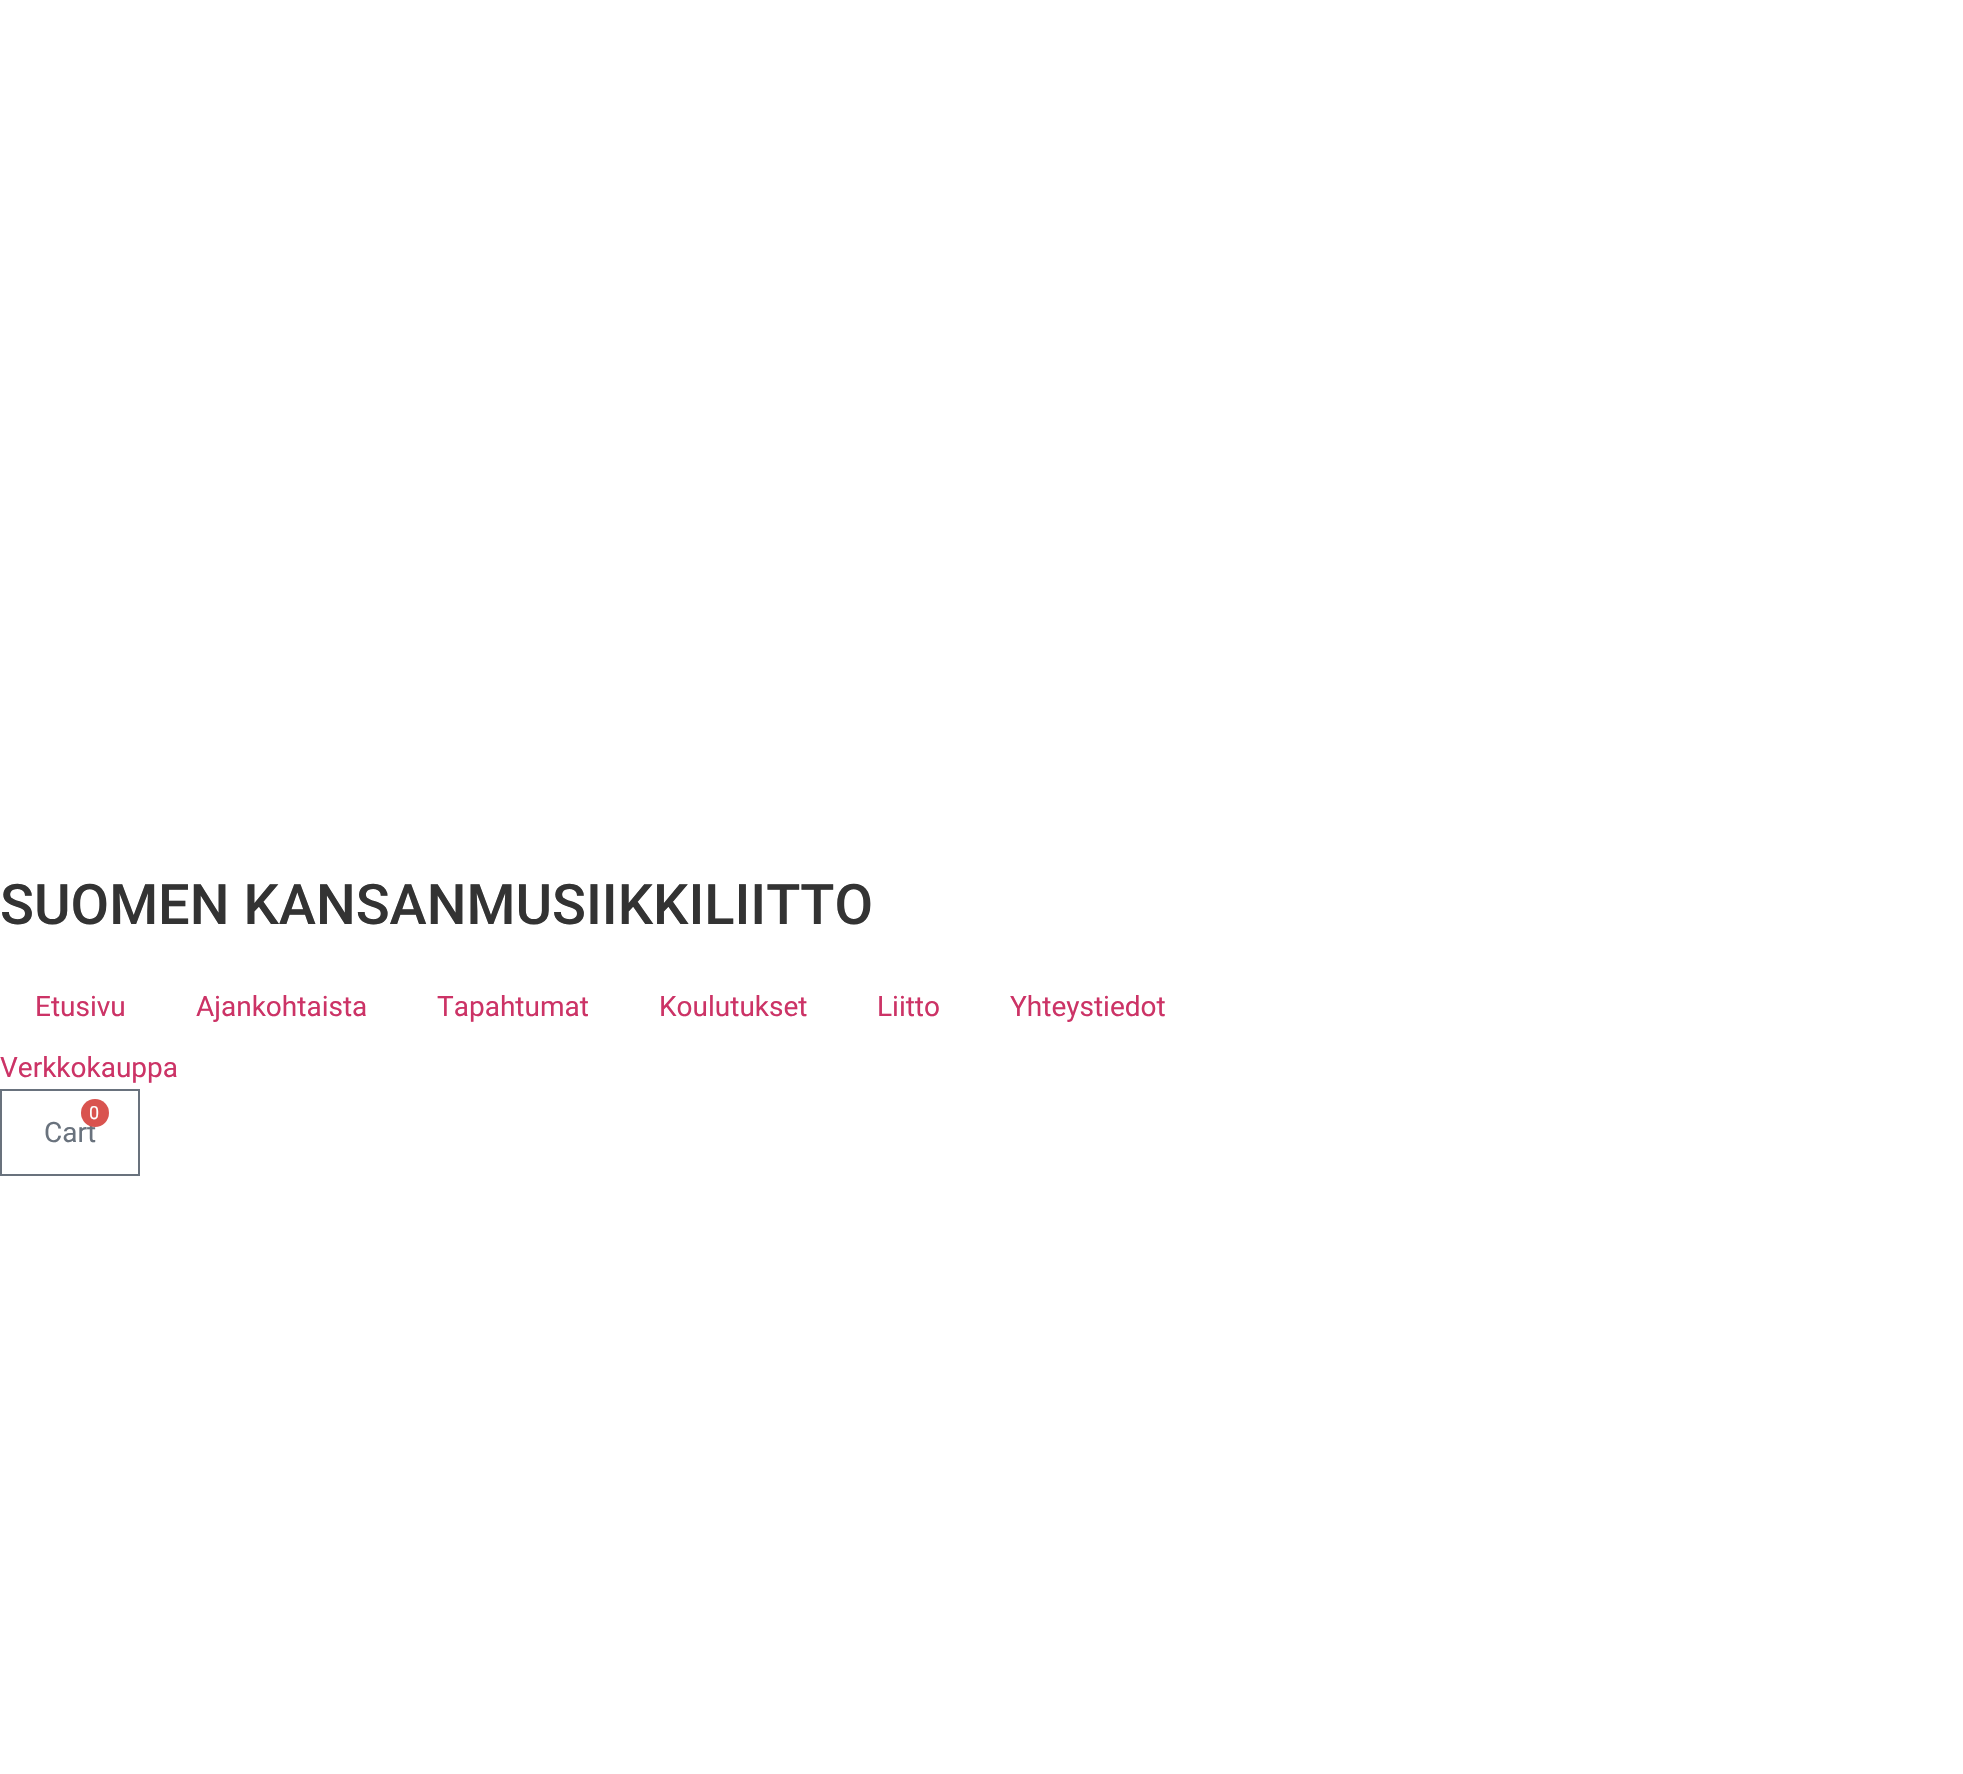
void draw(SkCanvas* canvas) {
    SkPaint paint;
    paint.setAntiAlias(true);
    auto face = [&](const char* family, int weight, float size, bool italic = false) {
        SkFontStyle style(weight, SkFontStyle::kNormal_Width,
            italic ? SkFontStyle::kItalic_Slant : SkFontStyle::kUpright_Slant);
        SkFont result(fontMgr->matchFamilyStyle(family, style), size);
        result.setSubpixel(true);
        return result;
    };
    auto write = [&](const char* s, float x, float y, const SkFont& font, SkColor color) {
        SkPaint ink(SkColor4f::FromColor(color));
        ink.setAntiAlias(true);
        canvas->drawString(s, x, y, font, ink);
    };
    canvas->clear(SK_ColorWHITE);
    auto kFont1 = face("Roboto", 500, 56);
    write("SUOMEN KANSANMUSIIKKILIITTO", 0, 924, kFont1, SkColorSetRGB(51, 51, 51));
    auto kFont2 = face("Roboto", 400, 28);
    write("Etusivu", 35, 1016, kFont2, SkColorSetRGB(204, 51, 102));
    write("Ajankohtaista", 196, 1016, kFont2, SkColorSetRGB(204, 51, 102));
    write("Tapahtumat", 437, 1016, kFont2, SkColorSetRGB(204, 51, 102));
    write("Koulutukset", 659, 1016, kFont2, SkColorSetRGB(204, 51, 102));
    write("Liitto", 877, 1016, kFont2, SkColorSetRGB(204, 51, 102));
    write("Yhteystiedot", 1010, 1016, kFont2, SkColorSetRGB(204, 51, 102));
    write("Verkkokauppa", 0, 1077, kFont2, SkColorSetRGB(204, 51, 102));
    paint.setStyle(SkPaint::kStroke_Style);
    paint.setStrokeWidth(2);
    paint.setColor(SkColorSetRGB(105, 114, 125));
    canvas->drawRect(SkRect::MakeXYWH(1, 1090, 138, 85), paint);
    write("Cart", 44, 1142, kFont2, SkColorSetRGB(105, 114, 125));
    paint.setStyle(SkPaint::kFill_Style);
    paint.setColor(SkColorSetRGB(217, 83, 79));
    canvas->drawCircle(95, 1113, 14, paint);
    auto kFont3 = face("Roboto", 400, 18);
    write("0", 89, 1119, kFont3, SK_ColorWHITE);
}
